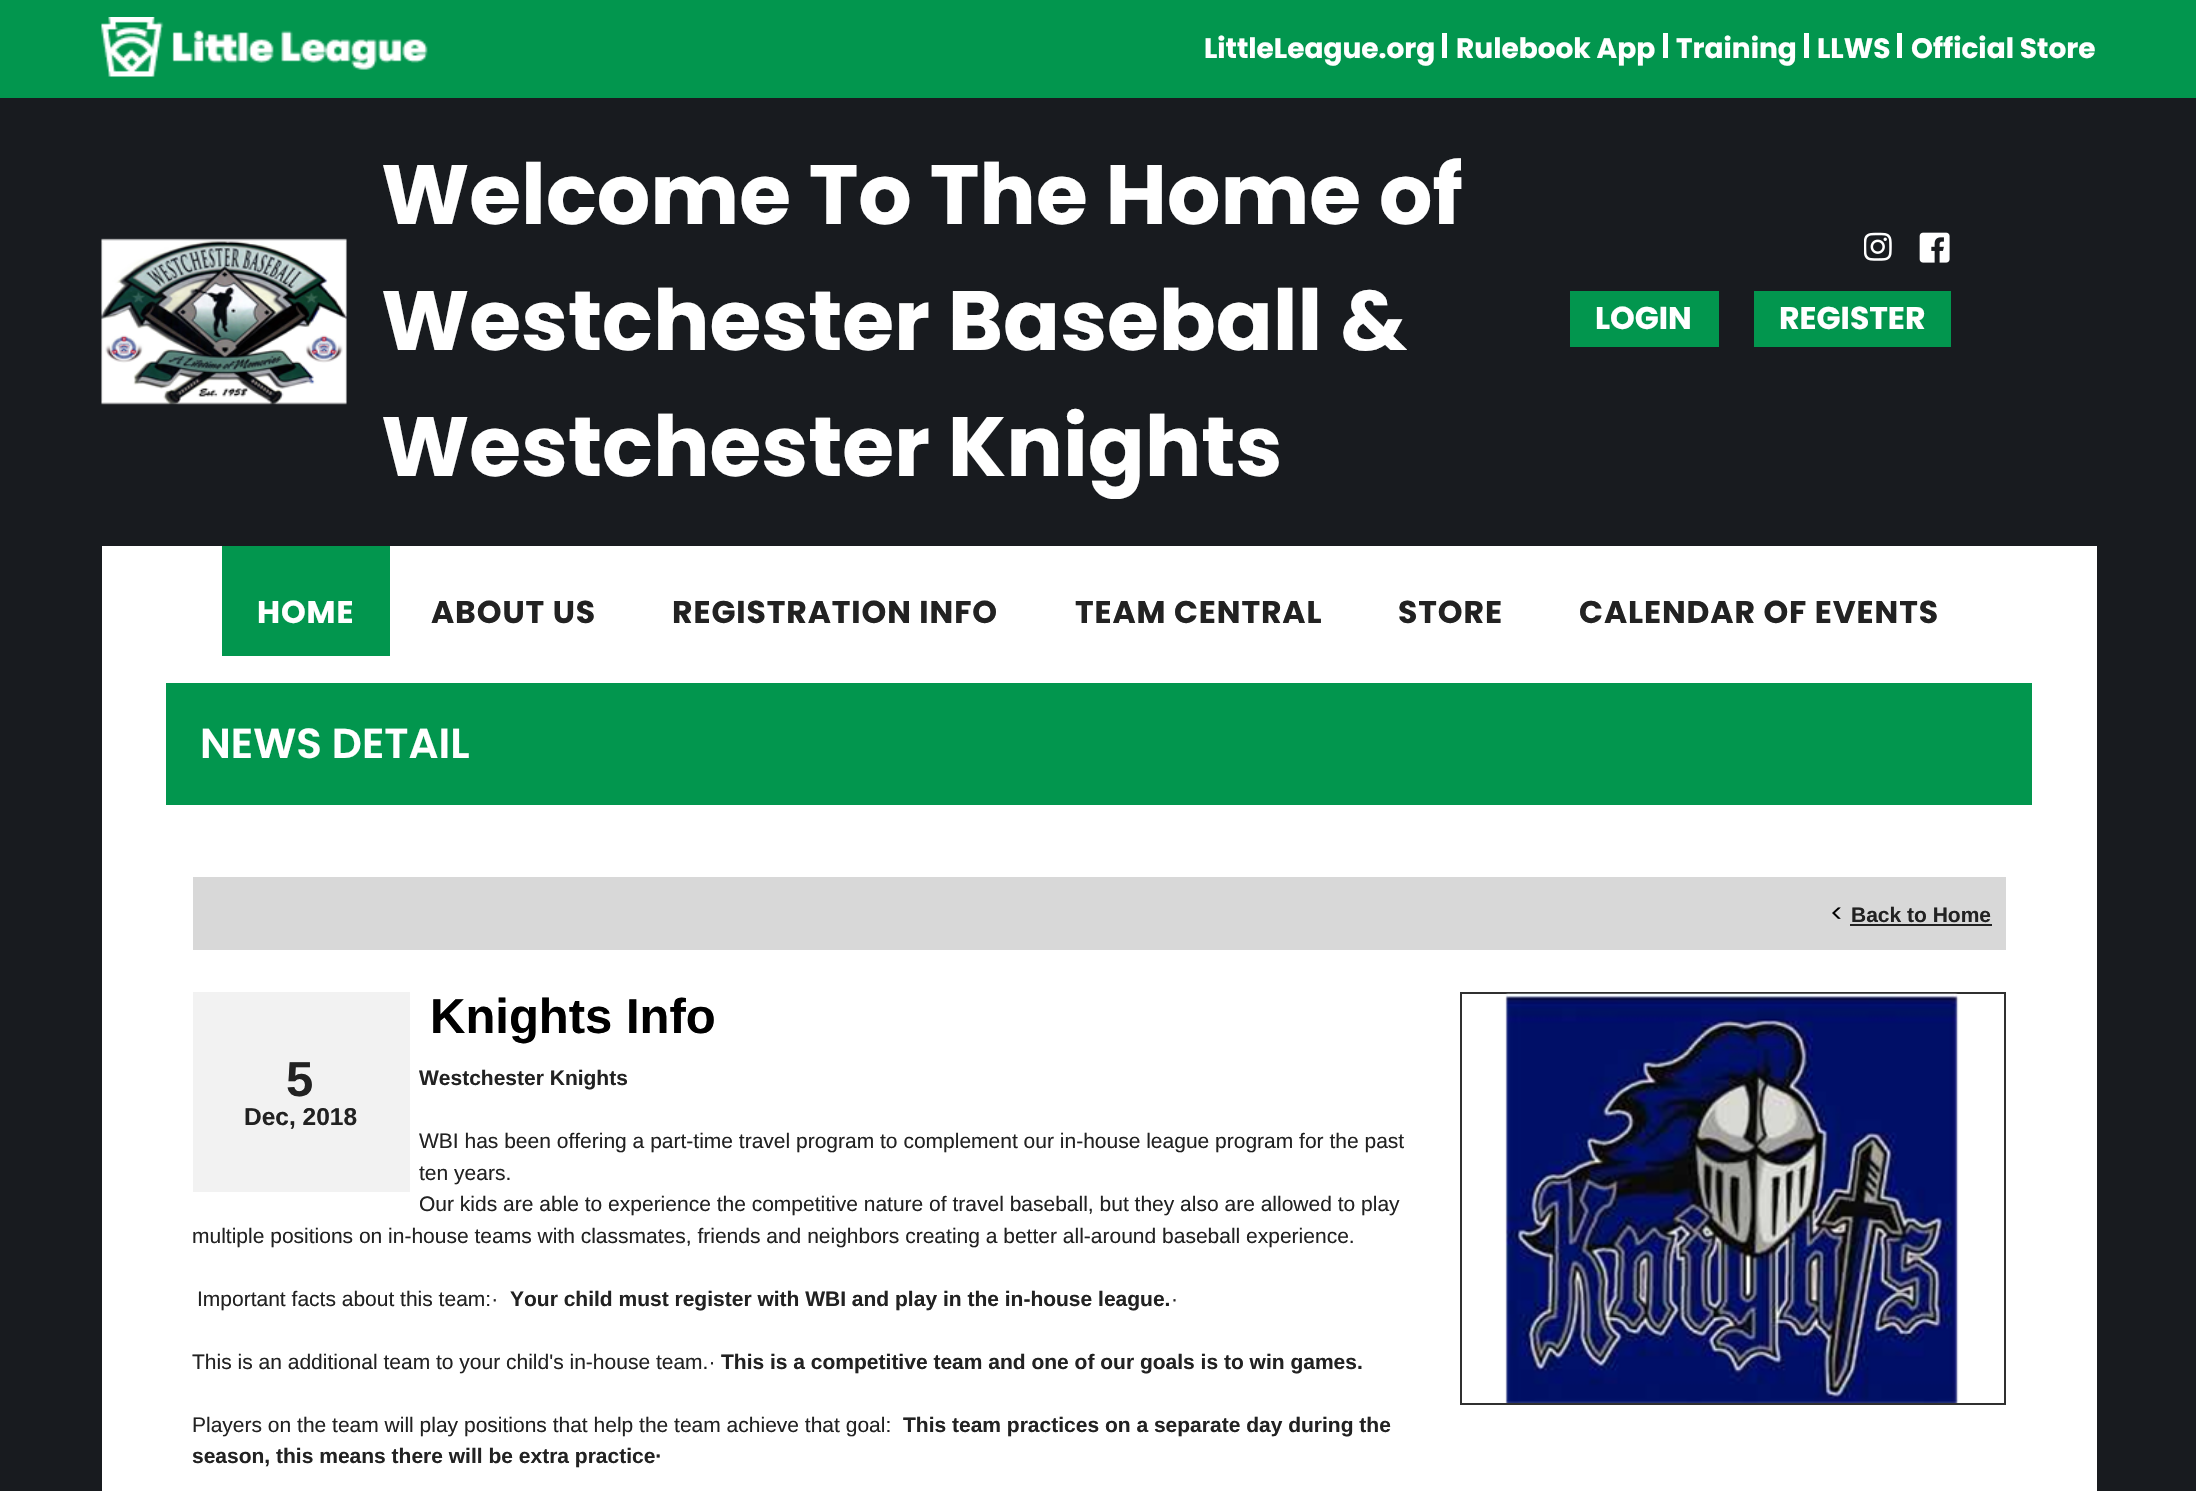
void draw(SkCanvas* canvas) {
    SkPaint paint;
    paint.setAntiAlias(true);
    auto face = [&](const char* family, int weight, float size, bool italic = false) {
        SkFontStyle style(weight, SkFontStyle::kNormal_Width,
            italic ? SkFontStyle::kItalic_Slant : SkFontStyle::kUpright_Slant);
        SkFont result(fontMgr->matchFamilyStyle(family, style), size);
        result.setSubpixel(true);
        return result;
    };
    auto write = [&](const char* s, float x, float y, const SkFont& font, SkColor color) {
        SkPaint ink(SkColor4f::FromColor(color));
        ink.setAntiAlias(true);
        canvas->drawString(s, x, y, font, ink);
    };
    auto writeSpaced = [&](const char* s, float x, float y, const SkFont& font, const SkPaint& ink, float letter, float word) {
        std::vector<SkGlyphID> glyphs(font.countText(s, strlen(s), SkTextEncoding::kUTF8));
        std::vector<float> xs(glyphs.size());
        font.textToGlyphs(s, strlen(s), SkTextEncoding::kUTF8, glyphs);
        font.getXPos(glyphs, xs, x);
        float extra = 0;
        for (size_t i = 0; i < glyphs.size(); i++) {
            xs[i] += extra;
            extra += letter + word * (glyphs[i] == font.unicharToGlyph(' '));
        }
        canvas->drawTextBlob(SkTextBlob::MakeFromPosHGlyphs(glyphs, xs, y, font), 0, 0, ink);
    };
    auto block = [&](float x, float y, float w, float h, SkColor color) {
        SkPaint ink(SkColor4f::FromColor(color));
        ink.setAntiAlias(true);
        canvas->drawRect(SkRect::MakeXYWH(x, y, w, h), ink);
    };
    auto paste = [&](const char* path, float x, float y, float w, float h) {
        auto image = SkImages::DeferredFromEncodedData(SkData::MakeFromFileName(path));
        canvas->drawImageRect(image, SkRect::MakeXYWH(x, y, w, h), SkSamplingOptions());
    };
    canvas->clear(SkColorSetRGB(24, 27, 31));
    block(0, 0, 2196, 98, SkColorSetRGB(2, 150, 78));
    paste("pic1.png", 101, 17, 327, 60);
    auto kFont1 = face("Poppins", 700, 28);
    write("LittleLeague.org", 1204, 58, kFont1, SK_ColorWHITE);
    block(1442, 33, 5, 25, SK_ColorWHITE);
    write("Rulebook App", 1456, 58, kFont1, SK_ColorWHITE);
    block(1663, 33, 5, 25, SK_ColorWHITE);
    write("Training", 1676, 58, kFont1, SK_ColorWHITE);
    block(1804, 33, 5, 25, SK_ColorWHITE);
    write("LLWS", 1817, 58, kFont1, SK_ColorWHITE);
    block(1897, 33, 5, 25, SK_ColorWHITE);
    write("Official Store", 1911, 58, kFont1, SK_ColorWHITE);
    paste("pic2.png", 101, 238, 246, 167);
    auto kFont2 = face("Poppins", 700, 84);
    write("Welcome To The Home of", 381, 224, kFont2, SK_ColorWHITE);
    write("Westchester Baseball &", 381, 350, kFont2, SK_ColorWHITE);
    write("Westchester Knights", 381, 476, kFont2, SK_ColorWHITE);
    paste("pic3.png", 1864, 232, 28, 29);
    paste("pic4.png", 1919, 232, 31, 31);
    block(1570, 291, 149, 56, SkColorSetRGB(2, 150, 78));
    auto kFont3 = face("Poppins", 700, 31.5f);
    write("LOGIN", 1595, 329, kFont3, SK_ColorWHITE);
    block(1754, 291, 197, 56, SkColorSetRGB(2, 150, 78));
    write("REGISTER", 1779, 329, kFont3, SK_ColorWHITE);
    block(102, 546, 1995, 945, SK_ColorWHITE);
    block(222, 546, 168, 110, SkColorSetRGB(2, 150, 78));
    paint.setColor(SK_ColorWHITE);
    writeSpaced("HOME", 257, 623, kFont3, paint, 0.9f, 0);
    paint.setColor(SkColorSetRGB(34, 34, 34));
    writeSpaced("ABOUT US", 431, 623, kFont3, paint, 0.9f, 0);
    writeSpaced("REGISTRATION INFO", 672, 623, kFont3, paint, 0.9f, 0);
    writeSpaced("TEAM CENTRAL", 1075, 623, kFont3, paint, 0.9f, 0);
    writeSpaced("STORE", 1398, 623, kFont3, paint, 0.9f, 0);
    writeSpaced("CALENDAR OF EVENTS", 1579, 623, kFont3, paint, 0.9f, 0);
    block(166, 683, 1866, 122, SkColorSetRGB(2, 150, 78));
    auto kFont4 = face("Poppins", 600, 42);
    write("NEWS DETAIL", 200, 758, kFont4, SK_ColorWHITE);
    block(193, 877, 1813, 73, SkColorSetRGB(216, 216, 216));
    auto kFont5 = face("Poppins", 400, 24.5f);
    write("<", 1830, 922, kFont5, SK_ColorBLACK);
    auto kFont6 = face("Liberation Sans", 700, 21);
    write("Back to Home", 1851, 922, kFont6, SkColorSetRGB(34, 34, 34));
    block(1850, 924, 142, 2, SkColorSetRGB(34, 34, 34));
    auto kFont7 = face("Liberation Sans", 700, 49);
    write("Knights Info", 430, 1033, kFont7, SK_ColorBLACK);
    paint.setStyle(SkPaint::kStroke_Style);
    paint.setStrokeWidth(2);
    paint.setColor(SkColorSetRGB(48, 48, 48));
    canvas->drawRect(SkRect::MakeXYWH(1461, 993, 544, 411), paint);
    paste("pic5.png", 1505, 993, 454, 410);
    block(193, 992, 217, 200, SkColorSetRGB(242, 242, 242));
    write("5", 286, 1096, kFont7, SkColorSetRGB(34, 34, 34));
    auto kFont8 = face("Liberation Sans", 700, 24.5f);
    write("Dec, 2018", 244, 1125, kFont8, SkColorSetRGB(34, 34, 34));
    write("Westchester Knights", 419, 1085, kFont6, SkColorSetRGB(34, 34, 34));
    auto kFont9 = face("Liberation Sans", 400, 21);
    write("WBI has been offering a part-time travel program to complement our in-house league program for the past", 419, 1148, kFont9, SkColorSetRGB(34, 34, 34));
    write("ten years.", 419, 1180, kFont9, SkColorSetRGB(34, 34, 34));
    write("Our kids are able to experience the competitive nature of travel baseball, but they also are allowed to play", 419, 1211, kFont9, SkColorSetRGB(34, 34, 34));
    write("multiple positions on in-house teams with classmates, friends and neighbors creating a better all-around baseball experience.", 192, 1243, kFont9, SkColorSetRGB(34, 34, 34));
    write("Important facts about this team:·", 197, 1306, kFont9, SkColorSetRGB(34, 34, 34));
    write("Your child must register with WBI and play in the in-house league.", 510, 1306, kFont6, SkColorSetRGB(34, 34, 34));
    write("·", 1171, 1306, kFont9, SkColorSetRGB(34, 34, 34));
    write("This is an additional team to your child's in-house team.·", 192, 1369, kFont9, SkColorSetRGB(34, 34, 34));
    write("This is a competitive team and one of our goals is to win games.", 721, 1369, kFont6, SkColorSetRGB(34, 34, 34));
    write("Players on the team will play positions that help the team achieve that goal:", 192, 1432, kFont9, SkColorSetRGB(34, 34, 34));
    write("This team practices on a separate day during the", 903, 1432, kFont6, SkColorSetRGB(34, 34, 34));
    write("season, this means there will be extra practice·", 192, 1463, kFont6, SkColorSetRGB(34, 34, 34));
}
